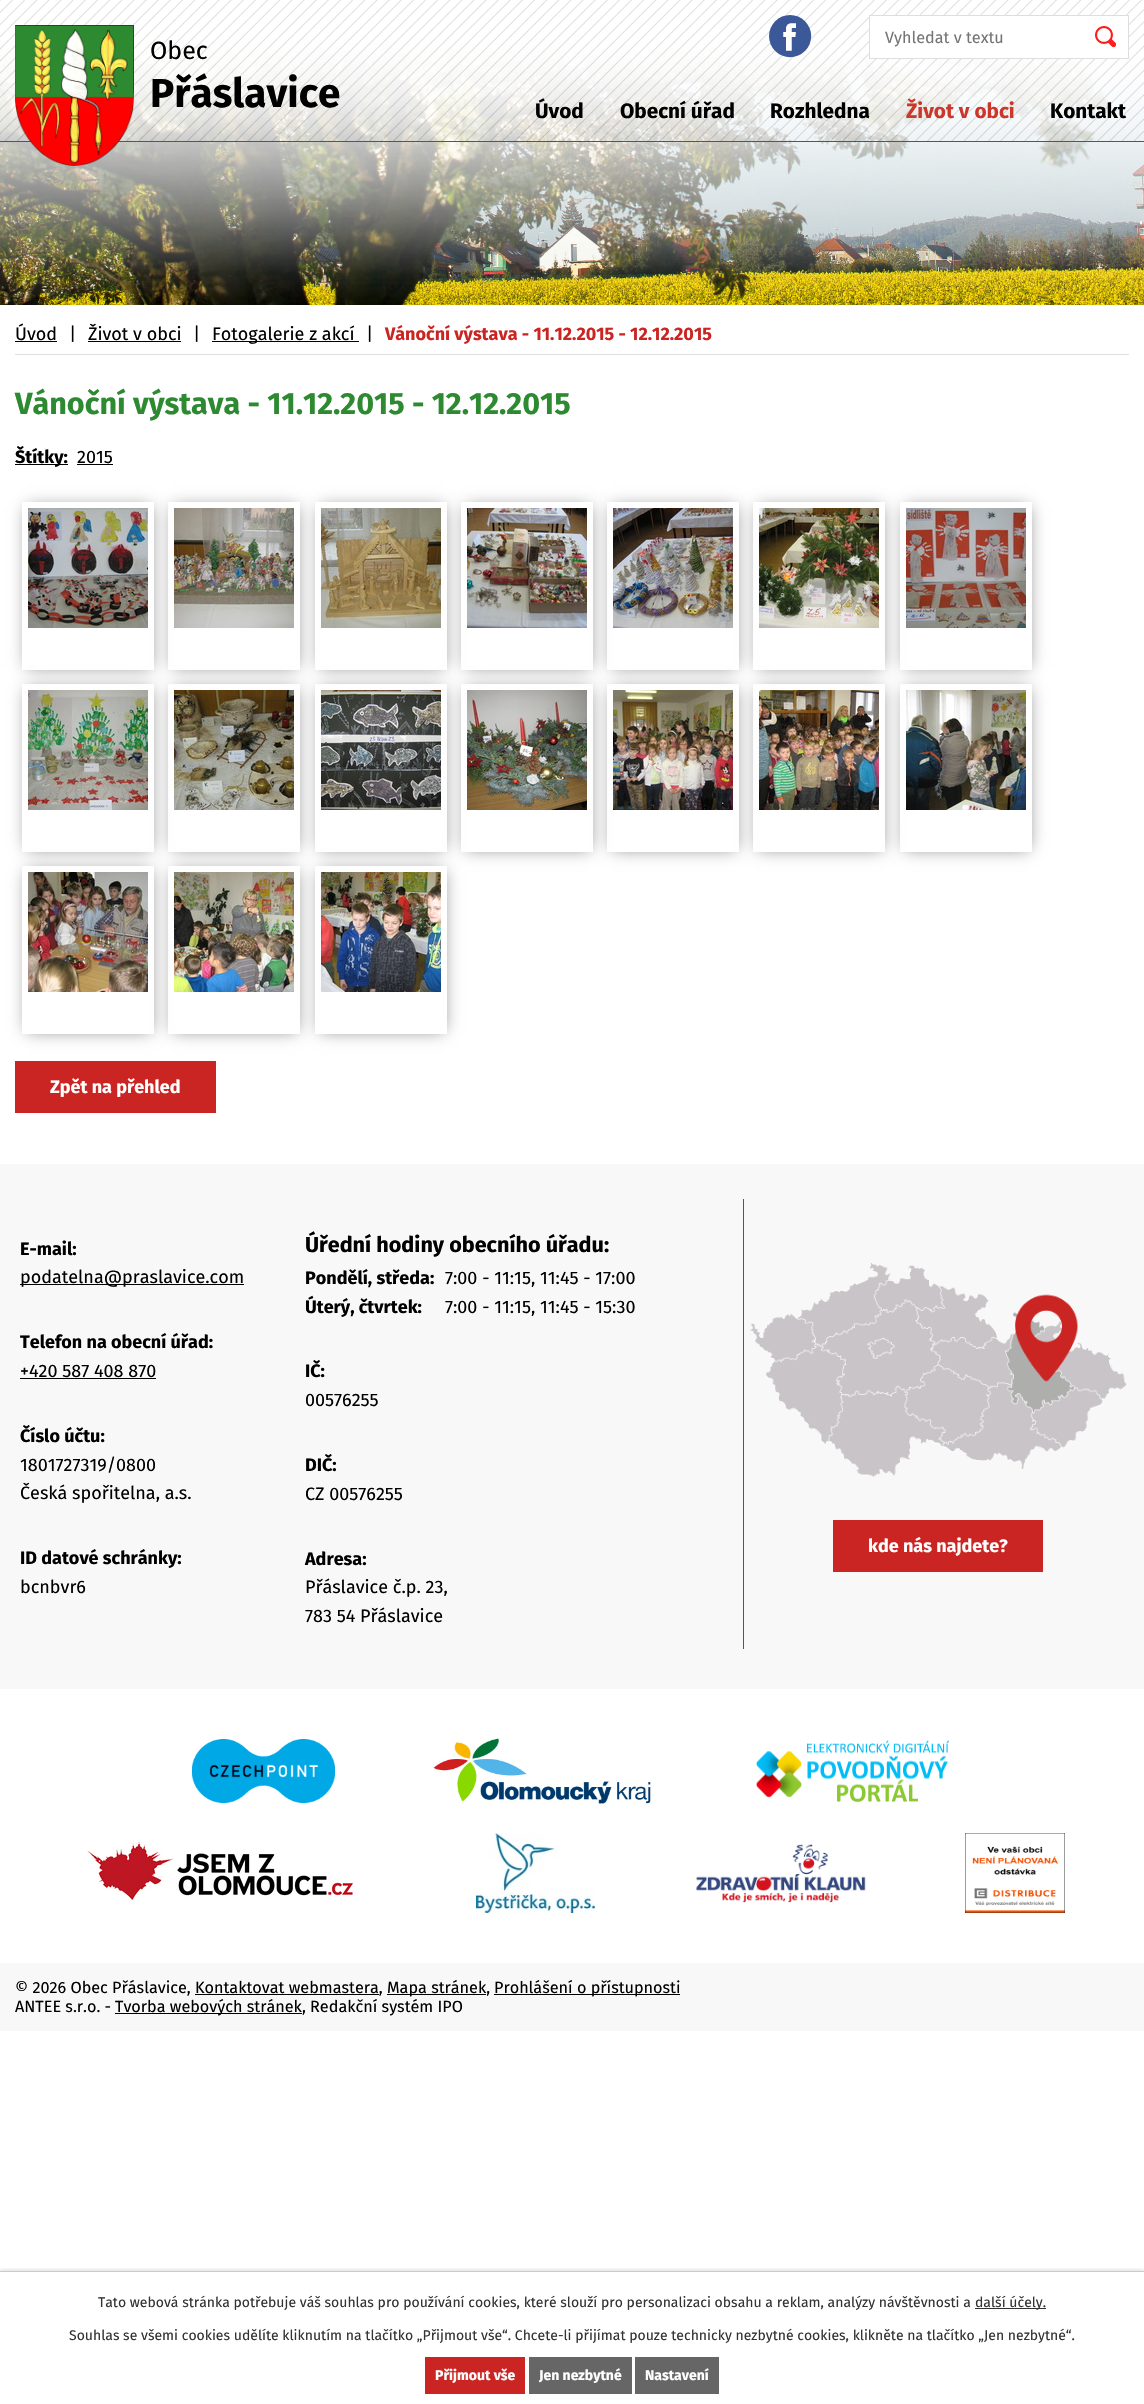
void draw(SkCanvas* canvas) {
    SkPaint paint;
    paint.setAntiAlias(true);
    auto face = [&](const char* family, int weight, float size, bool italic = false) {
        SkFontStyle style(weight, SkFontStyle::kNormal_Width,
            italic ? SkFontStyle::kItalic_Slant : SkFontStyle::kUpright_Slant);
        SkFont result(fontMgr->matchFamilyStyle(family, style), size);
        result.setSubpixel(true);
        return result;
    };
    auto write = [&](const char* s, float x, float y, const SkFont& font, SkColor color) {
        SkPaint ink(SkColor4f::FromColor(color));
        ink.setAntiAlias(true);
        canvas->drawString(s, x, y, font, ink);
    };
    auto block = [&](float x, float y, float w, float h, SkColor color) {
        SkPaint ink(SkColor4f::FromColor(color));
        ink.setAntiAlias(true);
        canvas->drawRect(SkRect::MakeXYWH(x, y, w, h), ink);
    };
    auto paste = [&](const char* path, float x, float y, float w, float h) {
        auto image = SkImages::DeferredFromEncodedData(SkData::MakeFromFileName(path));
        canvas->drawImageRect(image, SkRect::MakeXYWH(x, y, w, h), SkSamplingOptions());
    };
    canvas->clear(SK_ColorWHITE);
    paste("pic1.png", 0, 26, 1144, 279);
    paste("pic2.png", 0, 0, 1144, 141);
    block(0, 141, 1144, 1, SkColorSetRGB(203, 37, 34));
    paste("pic3.png", 15, 25, 119, 141);
    auto kFont1 = face("Fira Sans", 400, 25);
    write("Obec", 150, 59, kFont1, SK_ColorBLACK);
    auto kFont2 = face("Fira Sans", 700, 40.5f);
    write("Přáslavice", 150, 107, kFont2, SK_ColorBLACK);
    paste("pic4.png", 769, 15, 43, 43);
    paint.setColor(SK_ColorWHITE);
    canvas->drawRect(SkRect::MakeXYWH(869.5f, 15.5f, 259, 43), paint);
    paint.setStyle(SkPaint::kStroke_Style);
    paint.setStrokeWidth(1);
    paint.setColor(SkColorSetRGB(222, 222, 222));
    canvas->drawRect(SkRect::MakeXYWH(869.5f, 15.5f, 259, 43), paint);
    auto kFont3 = face("Fira Sans", 400, 16.2f);
    write("Vyhledat v textu", 885, 43, kFont3, SkColorSetRGB(117, 117, 117));
    paste("pic5.png", 1095, 26, 21, 22);
    auto kFont4 = face("Fira Sans", 700, 20.75f);
    write("Úvod", 535, 118, kFont4, SK_ColorBLACK);
    write("Obecní úřad", 620, 118, kFont4, SK_ColorBLACK);
    write("Rozhledna", 770, 118, kFont4, SK_ColorBLACK);
    write("Život v obci", 906, 118, kFont4, SkColorSetRGB(204, 54, 43));
    write("Kontakt", 1050, 118, kFont4, SK_ColorBLACK);
    block(15, 354, 1114, 1, SkColorSetRGB(222, 222, 222));
    auto kFont5 = face("Fira Sans", 400, 18);
    write("Úvod", 15, 340, kFont5, SK_ColorBLACK);
    block(15, 341, 42, 1, SK_ColorBLACK);
    write("|", 69, 340, kFont5, SK_ColorBLACK);
    write("Život v obci", 88, 340, kFont5, SK_ColorBLACK);
    block(88, 341, 93, 1, SK_ColorBLACK);
    write("|", 193, 340, kFont5, SK_ColorBLACK);
    block(212, 341, 147, 1, SK_ColorBLACK);
    write("Fotogalerie z akcí", 212, 340, kFont5, SK_ColorBLACK);
    write("|", 366, 340, kFont5, SK_ColorBLACK);
    auto kFont6 = face("Fira Sans", 700, 18);
    write("Vánoční výstava - 11.12.2015 - 12.12.2015", 385, 340, kFont6, SkColorSetRGB(203, 37, 34));
    auto kFont7 = face("Fira Sans", 700, 30.6f);
    write("Vánoční výstava - 11.12.2015 - 12.12.2015", 15, 414, kFont7, SkColorSetRGB(45, 138, 49));
    block(15, 464, 53, 1, SK_ColorBLACK);
    write("Štítky:", 15, 463, kFont6, SK_ColorBLACK);
    write("2015", 77, 463, kFont5, SK_ColorBLACK);
    block(77, 464, 36, 1, SK_ColorBLACK);
    canvas->save();
    canvas->clipPath(SkPathBuilder(SkPathFillType::kEvenOdd).moveTo(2, 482).lineTo(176, 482).lineTo(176, 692).lineTo(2, 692).close().moveTo(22, 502).lineTo(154, 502).lineTo(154, 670).lineTo(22, 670).close().detach(), true);
    paint.setStyle(SkPaint::kFill_Style);
    paint.setColor(SkColorSetRGB(136, 136, 136));
    paint.setMaskFilter(SkMaskFilter::MakeBlur(kNormal_SkBlurStyle, 8));
    canvas->drawRect(SkRect::MakeXYWH(27, 507, 124, 160), paint);
    paint.setMaskFilter(nullptr);
    canvas->restore();
    paste("pic6.png", 28, 508, 120, 120);
    canvas->save();
    canvas->clipPath(SkPathBuilder(SkPathFillType::kEvenOdd).moveTo(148, 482).lineTo(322, 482).lineTo(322, 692).lineTo(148, 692).close().moveTo(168, 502).lineTo(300, 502).lineTo(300, 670).lineTo(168, 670).close().detach(), true);
    paint.setMaskFilter(SkMaskFilter::MakeBlur(kNormal_SkBlurStyle, 8));
    canvas->drawRect(SkRect::MakeXYWH(173, 507, 124, 160), paint);
    paint.setMaskFilter(nullptr);
    canvas->restore();
    paste("pic7.png", 174, 508, 120, 120);
    canvas->save();
    canvas->clipPath(SkPathBuilder(SkPathFillType::kEvenOdd).moveTo(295, 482).lineTo(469, 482).lineTo(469, 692).lineTo(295, 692).close().moveTo(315, 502).lineTo(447, 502).lineTo(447, 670).lineTo(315, 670).close().detach(), true);
    paint.setMaskFilter(SkMaskFilter::MakeBlur(kNormal_SkBlurStyle, 8));
    canvas->drawRect(SkRect::MakeXYWH(320, 507, 124, 160), paint);
    paint.setMaskFilter(nullptr);
    canvas->restore();
    paste("pic8.png", 321, 508, 120, 120);
    canvas->save();
    canvas->clipPath(SkPathBuilder(SkPathFillType::kEvenOdd).moveTo(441, 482).lineTo(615, 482).lineTo(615, 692).lineTo(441, 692).close().moveTo(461, 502).lineTo(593, 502).lineTo(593, 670).lineTo(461, 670).close().detach(), true);
    paint.setMaskFilter(SkMaskFilter::MakeBlur(kNormal_SkBlurStyle, 8));
    canvas->drawRect(SkRect::MakeXYWH(466, 507, 124, 160), paint);
    paint.setMaskFilter(nullptr);
    canvas->restore();
    paste("pic9.png", 467, 508, 120, 120);
    canvas->save();
    canvas->clipPath(SkPathBuilder(SkPathFillType::kEvenOdd).moveTo(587, 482).lineTo(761, 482).lineTo(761, 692).lineTo(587, 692).close().moveTo(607, 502).lineTo(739, 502).lineTo(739, 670).lineTo(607, 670).close().detach(), true);
    paint.setMaskFilter(SkMaskFilter::MakeBlur(kNormal_SkBlurStyle, 8));
    canvas->drawRect(SkRect::MakeXYWH(612, 507, 124, 160), paint);
    paint.setMaskFilter(nullptr);
    canvas->restore();
    paste("pic10.png", 613, 508, 120, 120);
    canvas->save();
    canvas->clipPath(SkPathBuilder(SkPathFillType::kEvenOdd).moveTo(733, 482).lineTo(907, 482).lineTo(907, 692).lineTo(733, 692).close().moveTo(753, 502).lineTo(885, 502).lineTo(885, 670).lineTo(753, 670).close().detach(), true);
    paint.setMaskFilter(SkMaskFilter::MakeBlur(kNormal_SkBlurStyle, 8));
    canvas->drawRect(SkRect::MakeXYWH(758, 507, 124, 160), paint);
    paint.setMaskFilter(nullptr);
    canvas->restore();
    paste("pic11.png", 759, 508, 120, 120);
    canvas->save();
    canvas->clipPath(SkPathBuilder(SkPathFillType::kEvenOdd).moveTo(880, 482).lineTo(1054, 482).lineTo(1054, 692).lineTo(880, 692).close().moveTo(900, 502).lineTo(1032, 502).lineTo(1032, 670).lineTo(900, 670).close().detach(), true);
    paint.setMaskFilter(SkMaskFilter::MakeBlur(kNormal_SkBlurStyle, 8));
    canvas->drawRect(SkRect::MakeXYWH(905, 507, 124, 160), paint);
    paint.setMaskFilter(nullptr);
    canvas->restore();
    paste("pic12.png", 906, 508, 120, 120);
    canvas->save();
    canvas->clipPath(SkPathBuilder(SkPathFillType::kEvenOdd).moveTo(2, 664).lineTo(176, 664).lineTo(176, 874).lineTo(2, 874).close().moveTo(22, 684).lineTo(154, 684).lineTo(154, 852).lineTo(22, 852).close().detach(), true);
    paint.setMaskFilter(SkMaskFilter::MakeBlur(kNormal_SkBlurStyle, 8));
    canvas->drawRect(SkRect::MakeXYWH(27, 689, 124, 160), paint);
    paint.setMaskFilter(nullptr);
    canvas->restore();
    paste("pic13.png", 28, 690, 120, 120);
    canvas->save();
    canvas->clipPath(SkPathBuilder(SkPathFillType::kEvenOdd).moveTo(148, 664).lineTo(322, 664).lineTo(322, 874).lineTo(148, 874).close().moveTo(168, 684).lineTo(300, 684).lineTo(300, 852).lineTo(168, 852).close().detach(), true);
    paint.setMaskFilter(SkMaskFilter::MakeBlur(kNormal_SkBlurStyle, 8));
    canvas->drawRect(SkRect::MakeXYWH(173, 689, 124, 160), paint);
    paint.setMaskFilter(nullptr);
    canvas->restore();
    paste("pic14.png", 174, 690, 120, 120);
    canvas->save();
    canvas->clipPath(SkPathBuilder(SkPathFillType::kEvenOdd).moveTo(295, 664).lineTo(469, 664).lineTo(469, 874).lineTo(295, 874).close().moveTo(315, 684).lineTo(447, 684).lineTo(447, 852).lineTo(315, 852).close().detach(), true);
    paint.setMaskFilter(SkMaskFilter::MakeBlur(kNormal_SkBlurStyle, 8));
    canvas->drawRect(SkRect::MakeXYWH(320, 689, 124, 160), paint);
    paint.setMaskFilter(nullptr);
    canvas->restore();
    paste("pic15.png", 321, 690, 120, 120);
    canvas->save();
    canvas->clipPath(SkPathBuilder(SkPathFillType::kEvenOdd).moveTo(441, 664).lineTo(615, 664).lineTo(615, 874).lineTo(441, 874).close().moveTo(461, 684).lineTo(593, 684).lineTo(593, 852).lineTo(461, 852).close().detach(), true);
    paint.setMaskFilter(SkMaskFilter::MakeBlur(kNormal_SkBlurStyle, 8));
    canvas->drawRect(SkRect::MakeXYWH(466, 689, 124, 160), paint);
    paint.setMaskFilter(nullptr);
    canvas->restore();
    paste("pic16.png", 467, 690, 120, 120);
    canvas->save();
    canvas->clipPath(SkPathBuilder(SkPathFillType::kEvenOdd).moveTo(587, 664).lineTo(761, 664).lineTo(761, 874).lineTo(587, 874).close().moveTo(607, 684).lineTo(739, 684).lineTo(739, 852).lineTo(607, 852).close().detach(), true);
    paint.setMaskFilter(SkMaskFilter::MakeBlur(kNormal_SkBlurStyle, 8));
    canvas->drawRect(SkRect::MakeXYWH(612, 689, 124, 160), paint);
    paint.setMaskFilter(nullptr);
    canvas->restore();
    paste("pic17.png", 613, 690, 120, 120);
    canvas->save();
    canvas->clipPath(SkPathBuilder(SkPathFillType::kEvenOdd).moveTo(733, 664).lineTo(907, 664).lineTo(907, 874).lineTo(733, 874).close().moveTo(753, 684).lineTo(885, 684).lineTo(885, 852).lineTo(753, 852).close().detach(), true);
    paint.setMaskFilter(SkMaskFilter::MakeBlur(kNormal_SkBlurStyle, 8));
    canvas->drawRect(SkRect::MakeXYWH(758, 689, 124, 160), paint);
    paint.setMaskFilter(nullptr);
    canvas->restore();
    paste("pic18.png", 759, 690, 120, 120);
    canvas->save();
    canvas->clipPath(SkPathBuilder(SkPathFillType::kEvenOdd).moveTo(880, 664).lineTo(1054, 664).lineTo(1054, 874).lineTo(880, 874).close().moveTo(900, 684).lineTo(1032, 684).lineTo(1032, 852).lineTo(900, 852).close().detach(), true);
    paint.setMaskFilter(SkMaskFilter::MakeBlur(kNormal_SkBlurStyle, 8));
    canvas->drawRect(SkRect::MakeXYWH(905, 689, 124, 160), paint);
    paint.setMaskFilter(nullptr);
    canvas->restore();
    paste("pic19.png", 906, 690, 120, 120);
    canvas->save();
    canvas->clipPath(SkPathBuilder(SkPathFillType::kEvenOdd).moveTo(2, 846).lineTo(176, 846).lineTo(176, 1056).lineTo(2, 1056).close().moveTo(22, 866).lineTo(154, 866).lineTo(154, 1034).lineTo(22, 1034).close().detach(), true);
    paint.setMaskFilter(SkMaskFilter::MakeBlur(kNormal_SkBlurStyle, 8));
    canvas->drawRect(SkRect::MakeXYWH(27, 871, 124, 160), paint);
    paint.setMaskFilter(nullptr);
    canvas->restore();
    paste("pic20.png", 28, 872, 120, 120);
    canvas->save();
    canvas->clipPath(SkPathBuilder(SkPathFillType::kEvenOdd).moveTo(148, 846).lineTo(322, 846).lineTo(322, 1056).lineTo(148, 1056).close().moveTo(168, 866).lineTo(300, 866).lineTo(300, 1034).lineTo(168, 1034).close().detach(), true);
    paint.setMaskFilter(SkMaskFilter::MakeBlur(kNormal_SkBlurStyle, 8));
    canvas->drawRect(SkRect::MakeXYWH(173, 871, 124, 160), paint);
    paint.setMaskFilter(nullptr);
    canvas->restore();
    paste("pic21.png", 174, 872, 120, 120);
    canvas->save();
    canvas->clipPath(SkPathBuilder(SkPathFillType::kEvenOdd).moveTo(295, 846).lineTo(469, 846).lineTo(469, 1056).lineTo(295, 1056).close().moveTo(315, 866).lineTo(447, 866).lineTo(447, 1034).lineTo(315, 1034).close().detach(), true);
    paint.setMaskFilter(SkMaskFilter::MakeBlur(kNormal_SkBlurStyle, 8));
    canvas->drawRect(SkRect::MakeXYWH(320, 871, 124, 160), paint);
    paint.setMaskFilter(nullptr);
    canvas->restore();
    paste("pic22.png", 321, 872, 120, 120);
    block(15, 1061, 201, 52, SkColorSetRGB(203, 37, 35));
    write("Zpět na přehled", 50, 1093, kFont6, SK_ColorWHITE);
    block(0, 1164, 1144, 867, SkColorSetRGB(248, 248, 248));
    block(743, 1199, 1, 450, SkColorSetRGB(203, 37, 35));
    write("E-mail:", 20, 1255, kFont6, SK_ColorBLACK);
    block(20, 1284, 224, 1, SK_ColorBLACK);
    write("podatelna@praslavice.com", 20, 1283, kFont5, SK_ColorBLACK);
    write("Telefon na obecní úřad:", 20, 1348, kFont6, SK_ColorBLACK);
    write("+420 587 408 870", 20, 1377, kFont5, SK_ColorBLACK);
    block(20, 1378, 136, 1, SK_ColorBLACK);
    write("Číslo účtu:", 20, 1442, kFont6, SK_ColorBLACK);
    write("1801727319/0800", 20, 1471, kFont5, SK_ColorBLACK);
    write("Česká spořitelna, a.s.", 20, 1499, kFont5, SK_ColorBLACK);
    write("ID datové schránky:", 20, 1564, kFont6, SK_ColorBLACK);
    write("bcnbvr6", 20, 1593, kFont5, SK_ColorBLACK);
    auto kFont8 = face("Fira Sans", 700, 21.6f);
    write("Úřední hodiny obecního úřadu:", 305, 1252, kFont8, SK_ColorBLACK);
    write("Pondělí, středa:", 305, 1284, kFont6, SK_ColorBLACK);
    write("7:00 - 11:15, 11:45 - 17:00", 445, 1284, kFont5, SK_ColorBLACK);
    write("Úterý, čtvrtek:", 305, 1313, kFont6, SK_ColorBLACK);
    write("7:00 - 11:15, 11:45 - 15:30", 445, 1313, kFont5, SK_ColorBLACK);
    write("IČ:", 305, 1377, kFont6, SK_ColorBLACK);
    write("00576255", 305, 1406, kFont5, SK_ColorBLACK);
    write("DIČ:", 305, 1471, kFont6, SK_ColorBLACK);
    write("CZ 00576255", 305, 1500, kFont5, SK_ColorBLACK);
    write("Adresa:", 305, 1565, kFont6, SK_ColorBLACK);
    write("Přáslavice č.p. 23,", 305, 1593, kFont5, SK_ColorBLACK);
    write("783 54 Přáslavice", 305, 1622, kFont5, SK_ColorBLACK);
    paste("pic23.png", 750, 1263, 377, 214);
    block(833, 1520, 210, 52, SkColorSetRGB(203, 37, 35));
    write("kde nás najdete?", 868, 1552, kFont6, SK_ColorWHITE);
    block(0, 1689, 1144, 274, SK_ColorWHITE);
    paste("pic24.png", 192, 1739, 143, 64);
    paste("pic25.png", 433, 1738, 218, 66);
    paste("pic26.png", 756, 1740, 194, 62);
    paste("pic27.png", 87, 1841, 268, 62);
    paste("pic28.png", 476, 1833, 119, 80);
    paste("pic29.png", 696, 1844, 170, 59);
    paste("pic30.png", 965, 1833, 100, 80);
    write("© 2026 Obec Přáslavice, Kontaktovat webmastera,", 15, 1993, kFont3, SK_ColorBLACK);
    block(387, 1994, 99, 1, SK_ColorBLACK);
    write("Mapa stránek,", 387, 1993, kFont3, SK_ColorBLACK);
    block(494, 1994, 186, 1, SK_ColorBLACK);
    write("Prohlášení o přístupnosti", 494, 1993, kFont3, SK_ColorBLACK);
    block(195, 1994, 184, 1, SK_ColorBLACK);
    write("ANTEE s.r.o. -", 15, 2012, kFont3, SK_ColorBLACK);
    block(115, 2013, 187, 1, SK_ColorBLACK);
    write("Tvorba webových stránek, Redakční systém IPO", 115, 2012, kFont3, SK_ColorBLACK);
    canvas->save();
    canvas->clipRect(SkRect::MakeXYWH(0, 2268, 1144, 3));
    paint.setColor(SkColorSetARGB(51, 0, 0, 0));
    paint.setMaskFilter(SkMaskFilter::MakeBlur(kNormal_SkBlurStyle, 2.5f));
    canvas->drawRect(SkRect::MakeXYWH(0, 2271, 1144, 133), paint);
    paint.setMaskFilter(nullptr);
    canvas->restore();
    block(0, 2271, 1144, 1, SkColorSetRGB(204, 204, 204));
    auto kFont9 = face("Fira Sans", 400, 14);
    write("Tato webová stránka potřebuje váš souhlas pro používání cookies, které slouží pro personalizaci obsahu a reklam, analýzy návštěvnosti a", 98, 2307, kFont9, SkColorSetRGB(51, 51, 51));
    block(975, 2308, 71, 1, SkColorSetRGB(51, 51, 51));
    write("další účely.", 975, 2307, kFont9, SkColorSetRGB(51, 51, 51));
    write("Souhlas se všemi cookies udělíte kliknutím na tlačítko „Přijmout vše“. Chcete-li přijímat pouze technicky nezbytné cookies, klikněte na tlačítko „Jen nezbytné“.", 69, 2340, kFont9, SkColorSetRGB(51, 51, 51));
    block(425, 2357, 100, 37, SkColorSetRGB(203, 37, 35));
    auto kFont10 = face("Fira Sans", 700, 14);
    write("Přijmout vše", 435, 2380, kFont10, SK_ColorWHITE);
    block(529, 2357, 103, 37, SkColorSetRGB(102, 102, 102));
    write("Jen nezbytné", 539, 2380, kFont10, SK_ColorWHITE);
    block(635, 2357, 84, 37, SkColorSetRGB(102, 102, 102));
    write("Nastavení", 645, 2380, kFont10, SK_ColorWHITE);
}
